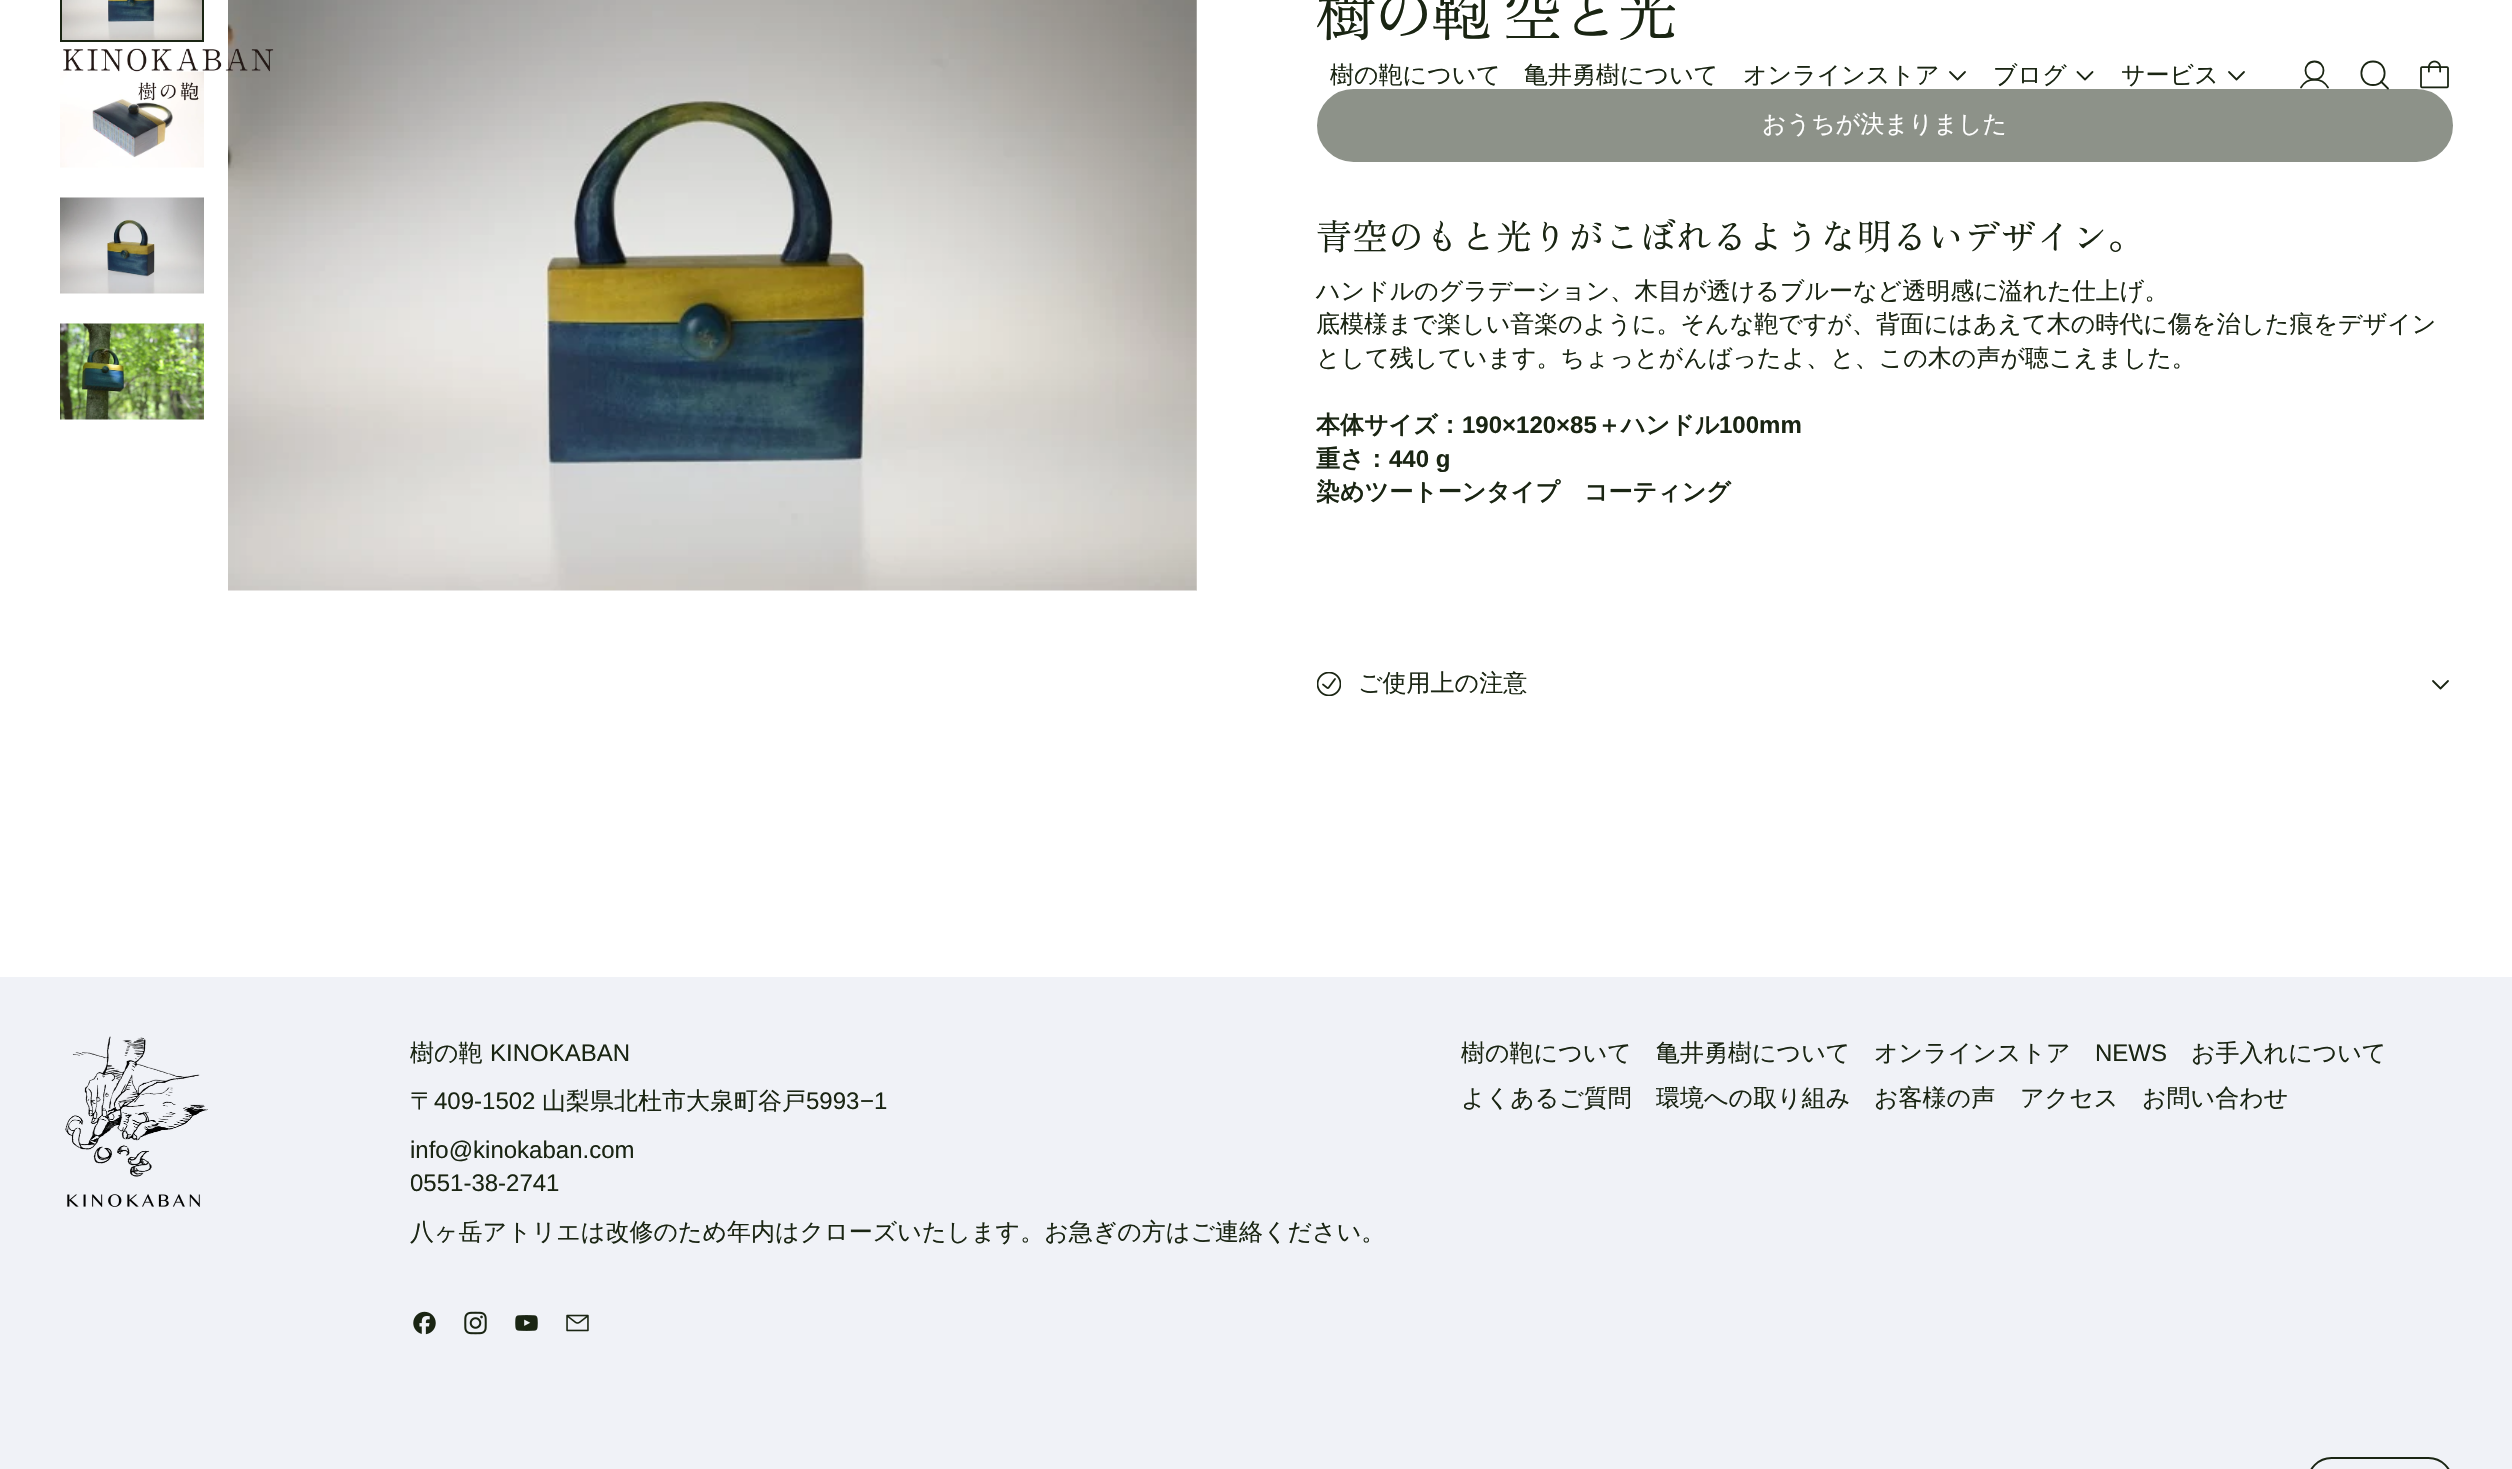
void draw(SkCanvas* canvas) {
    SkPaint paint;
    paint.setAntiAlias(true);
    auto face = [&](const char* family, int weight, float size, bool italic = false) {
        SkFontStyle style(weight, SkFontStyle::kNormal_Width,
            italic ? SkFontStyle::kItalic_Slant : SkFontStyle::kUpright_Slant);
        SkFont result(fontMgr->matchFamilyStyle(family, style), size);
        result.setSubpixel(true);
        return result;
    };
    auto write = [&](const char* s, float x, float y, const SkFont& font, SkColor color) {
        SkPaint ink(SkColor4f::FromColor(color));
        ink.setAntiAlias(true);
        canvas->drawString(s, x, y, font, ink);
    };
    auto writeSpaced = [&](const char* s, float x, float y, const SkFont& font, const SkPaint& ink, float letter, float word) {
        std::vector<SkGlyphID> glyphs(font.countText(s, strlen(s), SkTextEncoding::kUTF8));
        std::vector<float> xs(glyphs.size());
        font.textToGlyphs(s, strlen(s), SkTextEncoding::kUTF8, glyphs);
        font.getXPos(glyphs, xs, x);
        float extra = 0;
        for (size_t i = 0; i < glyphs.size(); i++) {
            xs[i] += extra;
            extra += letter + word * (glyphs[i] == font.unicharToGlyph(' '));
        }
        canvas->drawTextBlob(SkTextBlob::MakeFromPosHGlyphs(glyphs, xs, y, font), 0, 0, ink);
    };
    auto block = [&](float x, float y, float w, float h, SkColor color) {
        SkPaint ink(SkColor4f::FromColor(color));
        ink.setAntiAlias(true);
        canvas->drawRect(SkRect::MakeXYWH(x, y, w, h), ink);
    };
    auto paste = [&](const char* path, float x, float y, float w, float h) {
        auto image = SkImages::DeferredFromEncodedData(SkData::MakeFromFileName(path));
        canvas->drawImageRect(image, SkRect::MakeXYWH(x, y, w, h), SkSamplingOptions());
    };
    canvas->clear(SK_ColorWHITE);
    paint.setStyle(SkPaint::kStroke_Style);
    paint.setStrokeWidth(2);
    paint.setColor(SkColorSetRGB(26, 37, 19));
    canvas->drawRect(SkRect::MakeXYWH(61, -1, 142, 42), paint);
    paste("pic1.png", 62, 0, 140, 40);
    paste("pic2.png", 60, 71, 144, 97);
    paste("pic3.png", 60, 197, 144, 97);
    paste("pic4.png", 60, 323, 144, 97);
    paste("pic5.png", 228, 0, 969, 591);
    paste("pic6.png", 1196, 0, 1, 590);
    auto kFont1 = face("Zen Old Mincho", 400, 60.5f);
    paint.setStyle(SkPaint::kFill_Style);
    writeSpaced("樹の鞄 空と光", 1316, 36, kFont1, paint, -3, 0);
    paint.setColor(SkColorSetRGB(141, 146, 137));
    canvas->drawRoundRect(SkRect::MakeXYWH(1318, 90, 1134, 71), 35.5f, 35.5f, paint);
    paint.setStyle(SkPaint::kStroke_Style);
    canvas->drawRoundRect(SkRect::MakeXYWH(1318, 90, 1134, 71), 35.5f, 35.5f, paint);
    auto kFont2 = face("WenQuanYi Zen Hei", 500, 24);
    write("おうちが決まりました", 1762, 132, kFont2, SK_ColorWHITE);
    auto kFont3 = face("Zen Old Mincho", 400, 36);
    write("青空のもと光りがこぼれるような明るいデザイン。", 1316, 250, kFont3, SkColorSetRGB(26, 37, 19));
    write("ハンドルのグラデーション、木目が透けるブルーなど透明感に溢れた仕上げ。", 1316, 299, kFont2, SkColorSetRGB(26, 37, 19));
    write("底模様まで楽しい音楽のように。そんな鞄ですが、背面にはあえて木の時代に傷を治した痕をデザイン", 1316, 332, kFont2, SkColorSetRGB(26, 37, 19));
    write("として残しています。ちょっとがんばったよ、と、この木の声が聴こえました。", 1316, 366, kFont2, SkColorSetRGB(26, 37, 19));
    auto kFont4 = face("WenQuanYi Zen Hei", 700, 24);
    write("本体サイズ：", 1316, 433, kFont4, SkColorSetRGB(26, 37, 19));
    auto kFont5 = face("Arimo", 700, 24);
    write("190×120×85", 1462, 433, kFont5, SkColorSetRGB(26, 37, 19));
    write("＋ハンドル", 1597, 433, kFont4, SkColorSetRGB(26, 37, 19));
    write("100mm", 1719, 433, kFont5, SkColorSetRGB(26, 37, 19));
    write("重さ：", 1316, 467, kFont4, SkColorSetRGB(26, 37, 19));
    write("440 g", 1389, 467, kFont5, SkColorSetRGB(26, 37, 19));
    write("染めツートーンタイプ　コーティング", 1316, 500, kFont4, SkColorSetRGB(26, 37, 19));
    paste("pic7.png", 1317, 672, 24, 24);
    write("ご使用上の注意", 1358, 691, kFont2, SkColorSetRGB(26, 37, 19));
    paint.setStrokeWidth(1.8f);
    paint.setStrokeCap(SkPaint::kRound_Cap);
    paint.setStrokeJoin(SkPaint::kRound_Join);
    paint.setColor(SkColorSetRGB(26, 37, 19));
    canvas->drawPath(SkPathBuilder().moveTo(2448, 681).lineTo(2440.5f, 688.5f).lineTo(2433, 681).detach(), paint);
    paste("pic8.png", 63, 48, 211, 53);
    write("樹の鞄について", 1330, 83, kFont2, SkColorSetRGB(26, 37, 19));
    write("亀井勇樹について", 1524, 83, kFont2, SkColorSetRGB(26, 37, 19));
    write("オンラインストア", 1743, 83, kFont2, SkColorSetRGB(26, 37, 19));
    canvas->drawPath(SkPathBuilder().moveTo(1965, 72).lineTo(1957.5f, 79.5f).lineTo(1950, 72).detach(), paint);
    write("ブログ", 1993, 83, kFont2, SkColorSetRGB(26, 37, 19));
    canvas->drawPath(SkPathBuilder().moveTo(2092.5f, 72).lineTo(2085, 79.5f).lineTo(2077.5f, 72).detach(), paint);
    write("サービス", 2121, 83, kFont2, SkColorSetRGB(26, 37, 19));
    canvas->drawPath(SkPathBuilder().moveTo(2244, 72).lineTo(2236.5f, 79.5f).lineTo(2229, 72).detach(), paint);
    paint.setStrokeCap(SkPaint::kButt_Cap);
    paint.setStrokeJoin(SkPaint::kMiter_Join);
    canvas->drawPath(SkPathBuilder().moveTo(2314.5f, 79.5f).cubicTo(2326.5f, 79.5f, 2326.5f, 61.5f, 2314.5f, 61.5f).cubicTo(2302.5f, 61.5f, 2302.5f, 79.5f, 2314.5f, 79.5f).close().detach(), paint);
    paint.setStrokeCap(SkPaint::kRound_Cap);
    paint.setStrokeJoin(SkPaint::kRound_Join);
    canvas->drawPath(SkPathBuilder().moveTo(2301, 87.5f).cubicTo(2307, 77, 2322, 77, 2328, 87.5f).detach(), paint);
    canvas->drawPath(SkPathBuilder().moveTo(2373, 85).cubicTo(2388.5f, 85, 2388.5f, 61.5f, 2373, 61.5f).cubicTo(2357.5f, 61.5f, 2357.5f, 85, 2373, 85).close().moveTo(2381, 81.5f).lineTo(2388, 88.5f).detach(), paint);
    paste("pic9.png", 2420, 60, 29, 29);
    block(0, 977, 2512, 492, SkColorSetRGB(240, 242, 247));
    paste("pic10.png", 65, 1036, 143, 171);
    write("樹の鞄", 410, 1061, kFont2, SkColorSetRGB(26, 37, 19));
    auto kFont6 = face("Arimo", 400, 24);
    write("KINOKABAN", 490, 1061, kFont6, SkColorSetRGB(26, 37, 19));
    write("〒", 410, 1109, kFont2, SkColorSetRGB(26, 37, 19));
    write("409-1502", 434, 1109, kFont6, SkColorSetRGB(26, 37, 19));
    write("山梨県北杜市大泉町谷戸", 542, 1109, kFont2, SkColorSetRGB(26, 37, 19));
    write("5993", 806, 1109, kFont6, SkColorSetRGB(26, 37, 19));
    auto kFont7 = face("Liberation Sans", 400, 24);
    write("−", 860, 1109, kFont7, SkColorSetRGB(26, 37, 19));
    write("1", 874, 1109, kFont6, SkColorSetRGB(26, 37, 19));
    write("info@kinokaban.com", 410, 1158, kFont6, SkColorSetRGB(26, 37, 19));
    write("0551-38-2741", 410, 1191, kFont6, SkColorSetRGB(26, 37, 19));
    write("八ヶ岳アトリエは改修のため年内はクローズいたします。お急ぎの方はご連絡ください。", 410, 1240, kFont2, SkColorSetRGB(26, 37, 19));
    paste("pic11.png", 413, 1311, 23, 24);
    paste("pic12.png", 464, 1311, 23, 24);
    paste("pic13.png", 515, 1315, 23, 16);
    paste("pic14.png", 566, 1314, 23, 18);
    write("樹の鞄について", 1461, 1061, kFont2, SkColorSetRGB(26, 37, 19));
    write("亀井勇樹について", 1656, 1061, kFont2, SkColorSetRGB(26, 37, 19));
    write("オンラインストア", 1874, 1061, kFont2, SkColorSetRGB(26, 37, 19));
    write("NEWS", 2095, 1061, kFont6, SkColorSetRGB(26, 37, 19));
    write("お手入れについて", 2191, 1061, kFont2, SkColorSetRGB(26, 37, 19));
    write("よくあるご質問", 1461, 1106, kFont2, SkColorSetRGB(26, 37, 19));
    write("環境への取り組み", 1656, 1106, kFont2, SkColorSetRGB(26, 37, 19));
    write("お客様の声", 1874, 1106, kFont2, SkColorSetRGB(26, 37, 19));
    write("アクセス", 2020, 1106, kFont2, SkColorSetRGB(26, 37, 19));
    write("お問い合わせ", 2142, 1106, kFont2, SkColorSetRGB(26, 37, 19));
    paint.setStrokeWidth(2);
    paint.setStrokeCap(SkPaint::kButt_Cap);
    paint.setStrokeJoin(SkPaint::kMiter_Join);
    canvas->drawRoundRect(SkRect::MakeXYWH(2308, 1458, 144, 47), 33.5f, 33.5f, paint);
}
